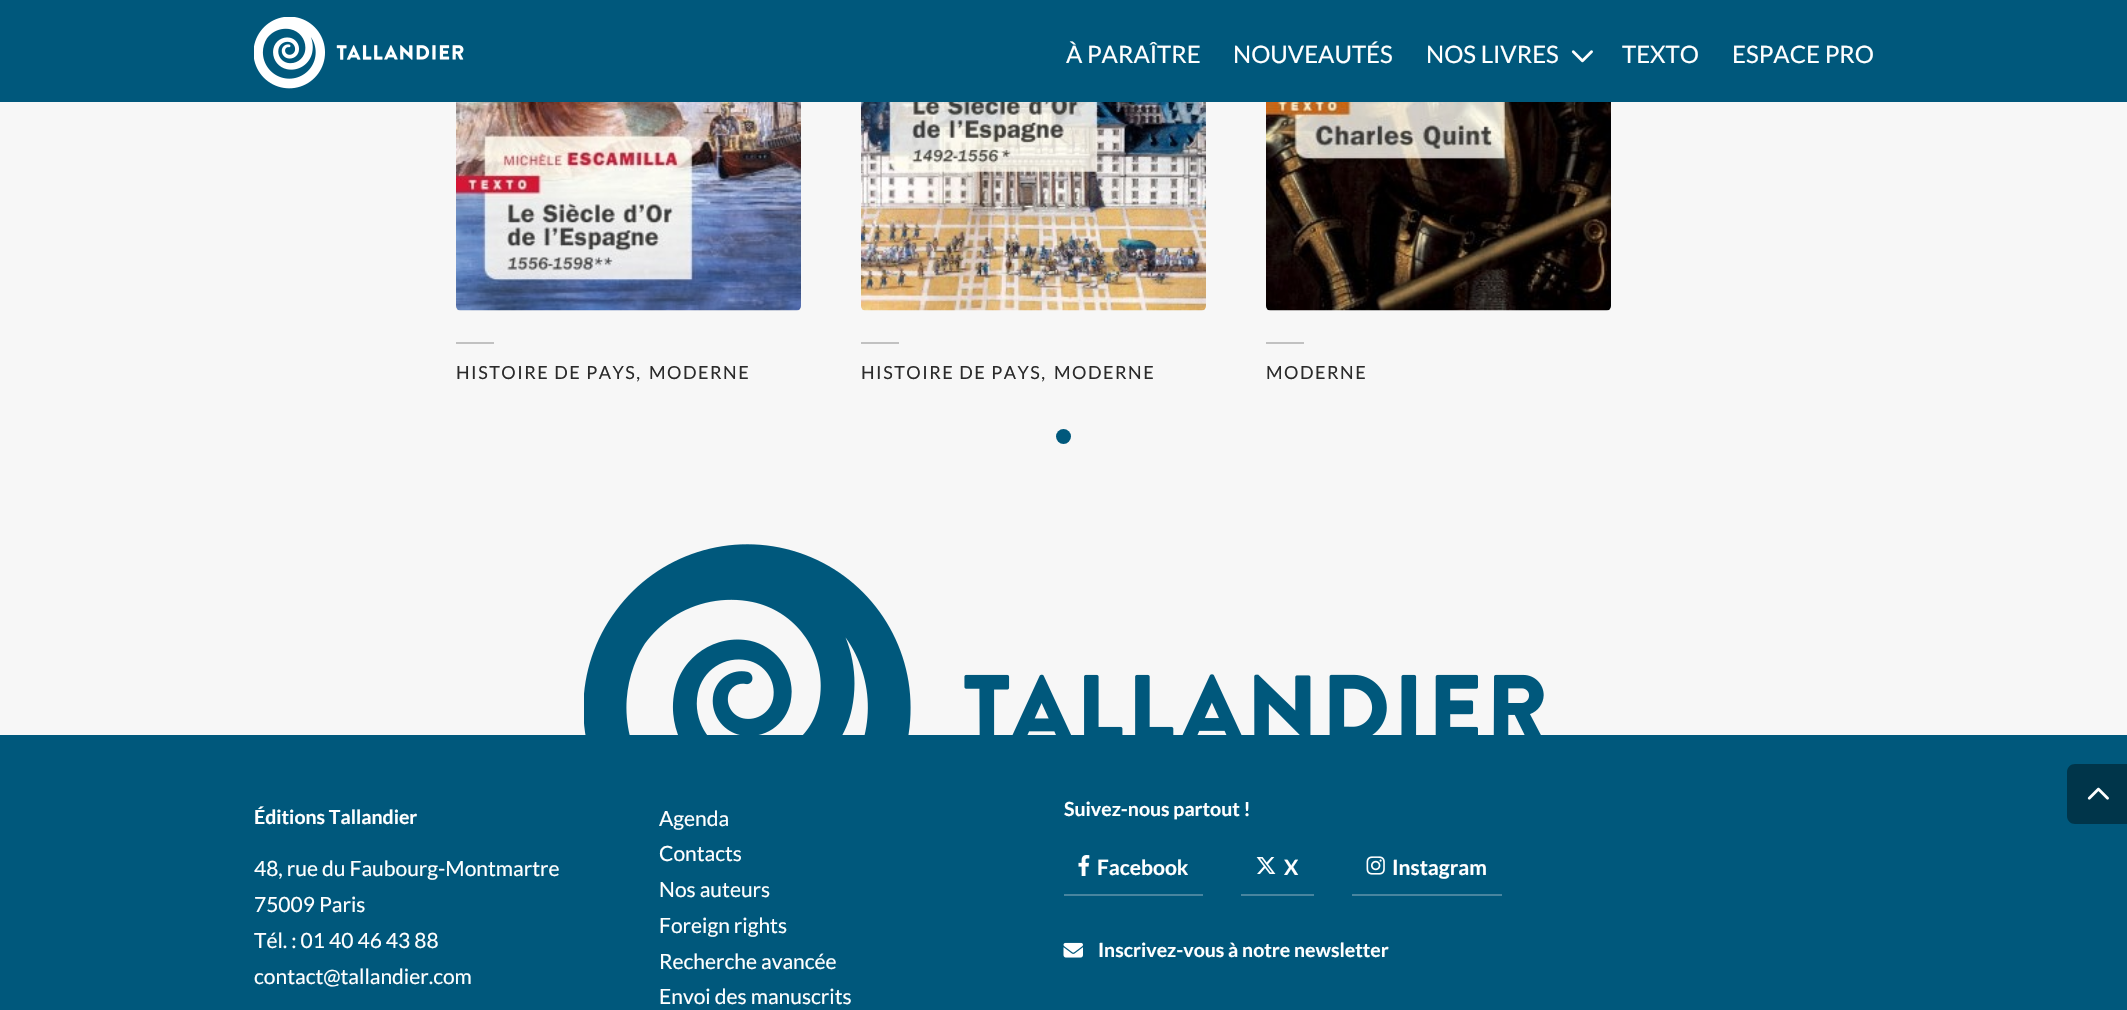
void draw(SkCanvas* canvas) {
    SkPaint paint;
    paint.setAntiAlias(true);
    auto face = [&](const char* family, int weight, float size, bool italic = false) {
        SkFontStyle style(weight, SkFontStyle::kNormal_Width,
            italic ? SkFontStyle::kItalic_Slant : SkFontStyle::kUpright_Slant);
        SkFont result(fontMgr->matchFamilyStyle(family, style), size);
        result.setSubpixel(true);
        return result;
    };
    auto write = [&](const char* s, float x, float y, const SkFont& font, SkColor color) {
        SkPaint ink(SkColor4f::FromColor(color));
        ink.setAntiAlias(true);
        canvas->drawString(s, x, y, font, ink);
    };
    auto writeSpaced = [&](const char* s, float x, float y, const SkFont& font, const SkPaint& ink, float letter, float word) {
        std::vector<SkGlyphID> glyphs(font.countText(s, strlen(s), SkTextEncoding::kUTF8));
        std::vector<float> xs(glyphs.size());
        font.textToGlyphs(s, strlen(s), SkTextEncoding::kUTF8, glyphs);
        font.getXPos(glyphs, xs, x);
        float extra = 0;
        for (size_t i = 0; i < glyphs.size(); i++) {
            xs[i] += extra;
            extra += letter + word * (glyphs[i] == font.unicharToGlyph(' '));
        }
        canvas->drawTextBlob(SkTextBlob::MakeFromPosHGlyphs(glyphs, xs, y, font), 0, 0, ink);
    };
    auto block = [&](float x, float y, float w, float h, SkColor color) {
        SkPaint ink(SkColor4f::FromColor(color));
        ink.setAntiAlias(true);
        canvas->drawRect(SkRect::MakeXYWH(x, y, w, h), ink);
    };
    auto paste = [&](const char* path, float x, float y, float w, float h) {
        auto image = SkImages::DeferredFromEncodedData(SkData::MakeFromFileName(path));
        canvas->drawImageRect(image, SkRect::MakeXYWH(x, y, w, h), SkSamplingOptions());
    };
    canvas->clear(SkColorSetRGB(247, 247, 247));
    block(0, 0, 2127, 102, SkColorSetRGB(0, 88, 124));
    paste("pic1.png", 254, 17, 210, 72);
    auto kFont1 = face("Lato", 400, 24);
    write("À PARAÎTRE", 1066, 63, kFont1, SK_ColorWHITE);
    write("NOUVEAUTÉS", 1233, 63, kFont1, SK_ColorWHITE);
    write("NOS LIVRES", 1426, 63, kFont1, SK_ColorWHITE);
    paste("pic2.png", 1571, 50, 22, 13);
    write("TEXTO", 1622, 63, kFont1, SK_ColorWHITE);
    write("ESPACE PRO", 1732, 63, kFont1, SK_ColorWHITE);
    paste("pic3.png", 456, 102, 345, 209);
    block(456, 342, 38, 2, SkColorSetRGB(193, 193, 193));
    auto kFont2 = face("Lato", 400, 18);
    paint.setColor(SkColorSetRGB(43, 43, 43));
    writeSpaced("HISTOIRE DE PAYS,", 456, 379, kFont2, paint, 1.5f, 0);
    writeSpaced("MODERNE", 649, 379, kFont2, paint, 1.5f, 0);
    paste("pic4.png", 861, 102, 345, 209);
    block(861, 342, 38, 2, SkColorSetRGB(193, 193, 193));
    writeSpaced("HISTOIRE DE PAYS,", 861, 379, kFont2, paint, 1.5f, 0);
    writeSpaced("MODERNE", 1054, 379, kFont2, paint, 1.5f, 0);
    paste("pic5.png", 1266, 102, 345, 209);
    block(1266, 342, 38, 2, SkColorSetRGB(193, 193, 193));
    writeSpaced("MODERNE", 1266, 379, kFont2, paint, 1.5f, 0);
    paint.setColor(SkColorSetRGB(0, 88, 124));
    canvas->drawCircle(1063.5f, 436.5f, 7.5f, paint);
    paste("pic6.png", 584, 544, 960, 191);
    block(0, 735, 2127, 275, SkColorSetRGB(0, 88, 124));
    auto kFont3 = face("Lato", 700, 19.5f);
    write("Éditions Tallandier", 254, 824, kFont3, SK_ColorWHITE);
    auto kFont4 = face("Lato", 400, 21);
    write("48, rue du Faubourg-Montmartre", 254, 876, kFont4, SK_ColorWHITE);
    write("75009 Paris", 254, 912, kFont4, SK_ColorWHITE);
    write("Tél. : 01 40 46 43 88", 254, 948, kFont4, SK_ColorWHITE);
    write("contact@tallandier.com", 254, 984, kFont4, SK_ColorWHITE);
    write("Agenda", 659, 826, kFont4, SK_ColorWHITE);
    write("Contacts", 659, 861, kFont4, SK_ColorWHITE);
    write("Nos auteurs", 659, 897, kFont4, SK_ColorWHITE);
    write("Foreign rights", 659, 933, kFont4, SK_ColorWHITE);
    write("Recherche avancée", 659, 969, kFont4, SK_ColorWHITE);
    write("Envoi des manuscrits", 659, 1004, kFont4, SK_ColorWHITE);
    write("Suivez-nous partout !", 1064, 816, kFont3, SK_ColorWHITE);
    paste("pic7.png", 1078, 855, 12, 21);
    auto kFont5 = face("Lato", 700, 21);
    write("Facebook", 1097, 875, kFont5, SK_ColorWHITE);
    block(1064, 894, 139, 2, SkColorSetRGB(72, 133, 159));
    paste("pic8.png", 1256, 857, 20, 17);
    write("X", 1284, 875, kFont5, SK_ColorWHITE);
    block(1241, 894, 73, 2, SkColorSetRGB(72, 133, 159));
    paste("pic9.png", 1366, 856, 19, 19);
    write("Instagram", 1392, 875, kFont5, SK_ColorWHITE);
    block(1352, 894, 150, 2, SkColorSetRGB(72, 133, 159));
    paste("pic10.png", 1063, 942, 20, 16);
    write("Inscrivez-vous à notre newsletter", 1098, 957, kFont3, SK_ColorWHITE);
    paint.setColor(SkColorSetRGB(0, 53, 74));
    canvas->drawPath(SkPathBuilder().moveTo(2075, 764).lineTo(2127, 764).lineTo(2127, 824).lineTo(2075, 824).cubicTo(2070.5f, 824, 2067, 820.5f, 2067, 816).lineTo(2067, 772).cubicTo(2067, 767.5f, 2070.5f, 764, 2075, 764).close().detach(), paint);
    paste("pic11.png", 2087, 787, 22, 13);
}
